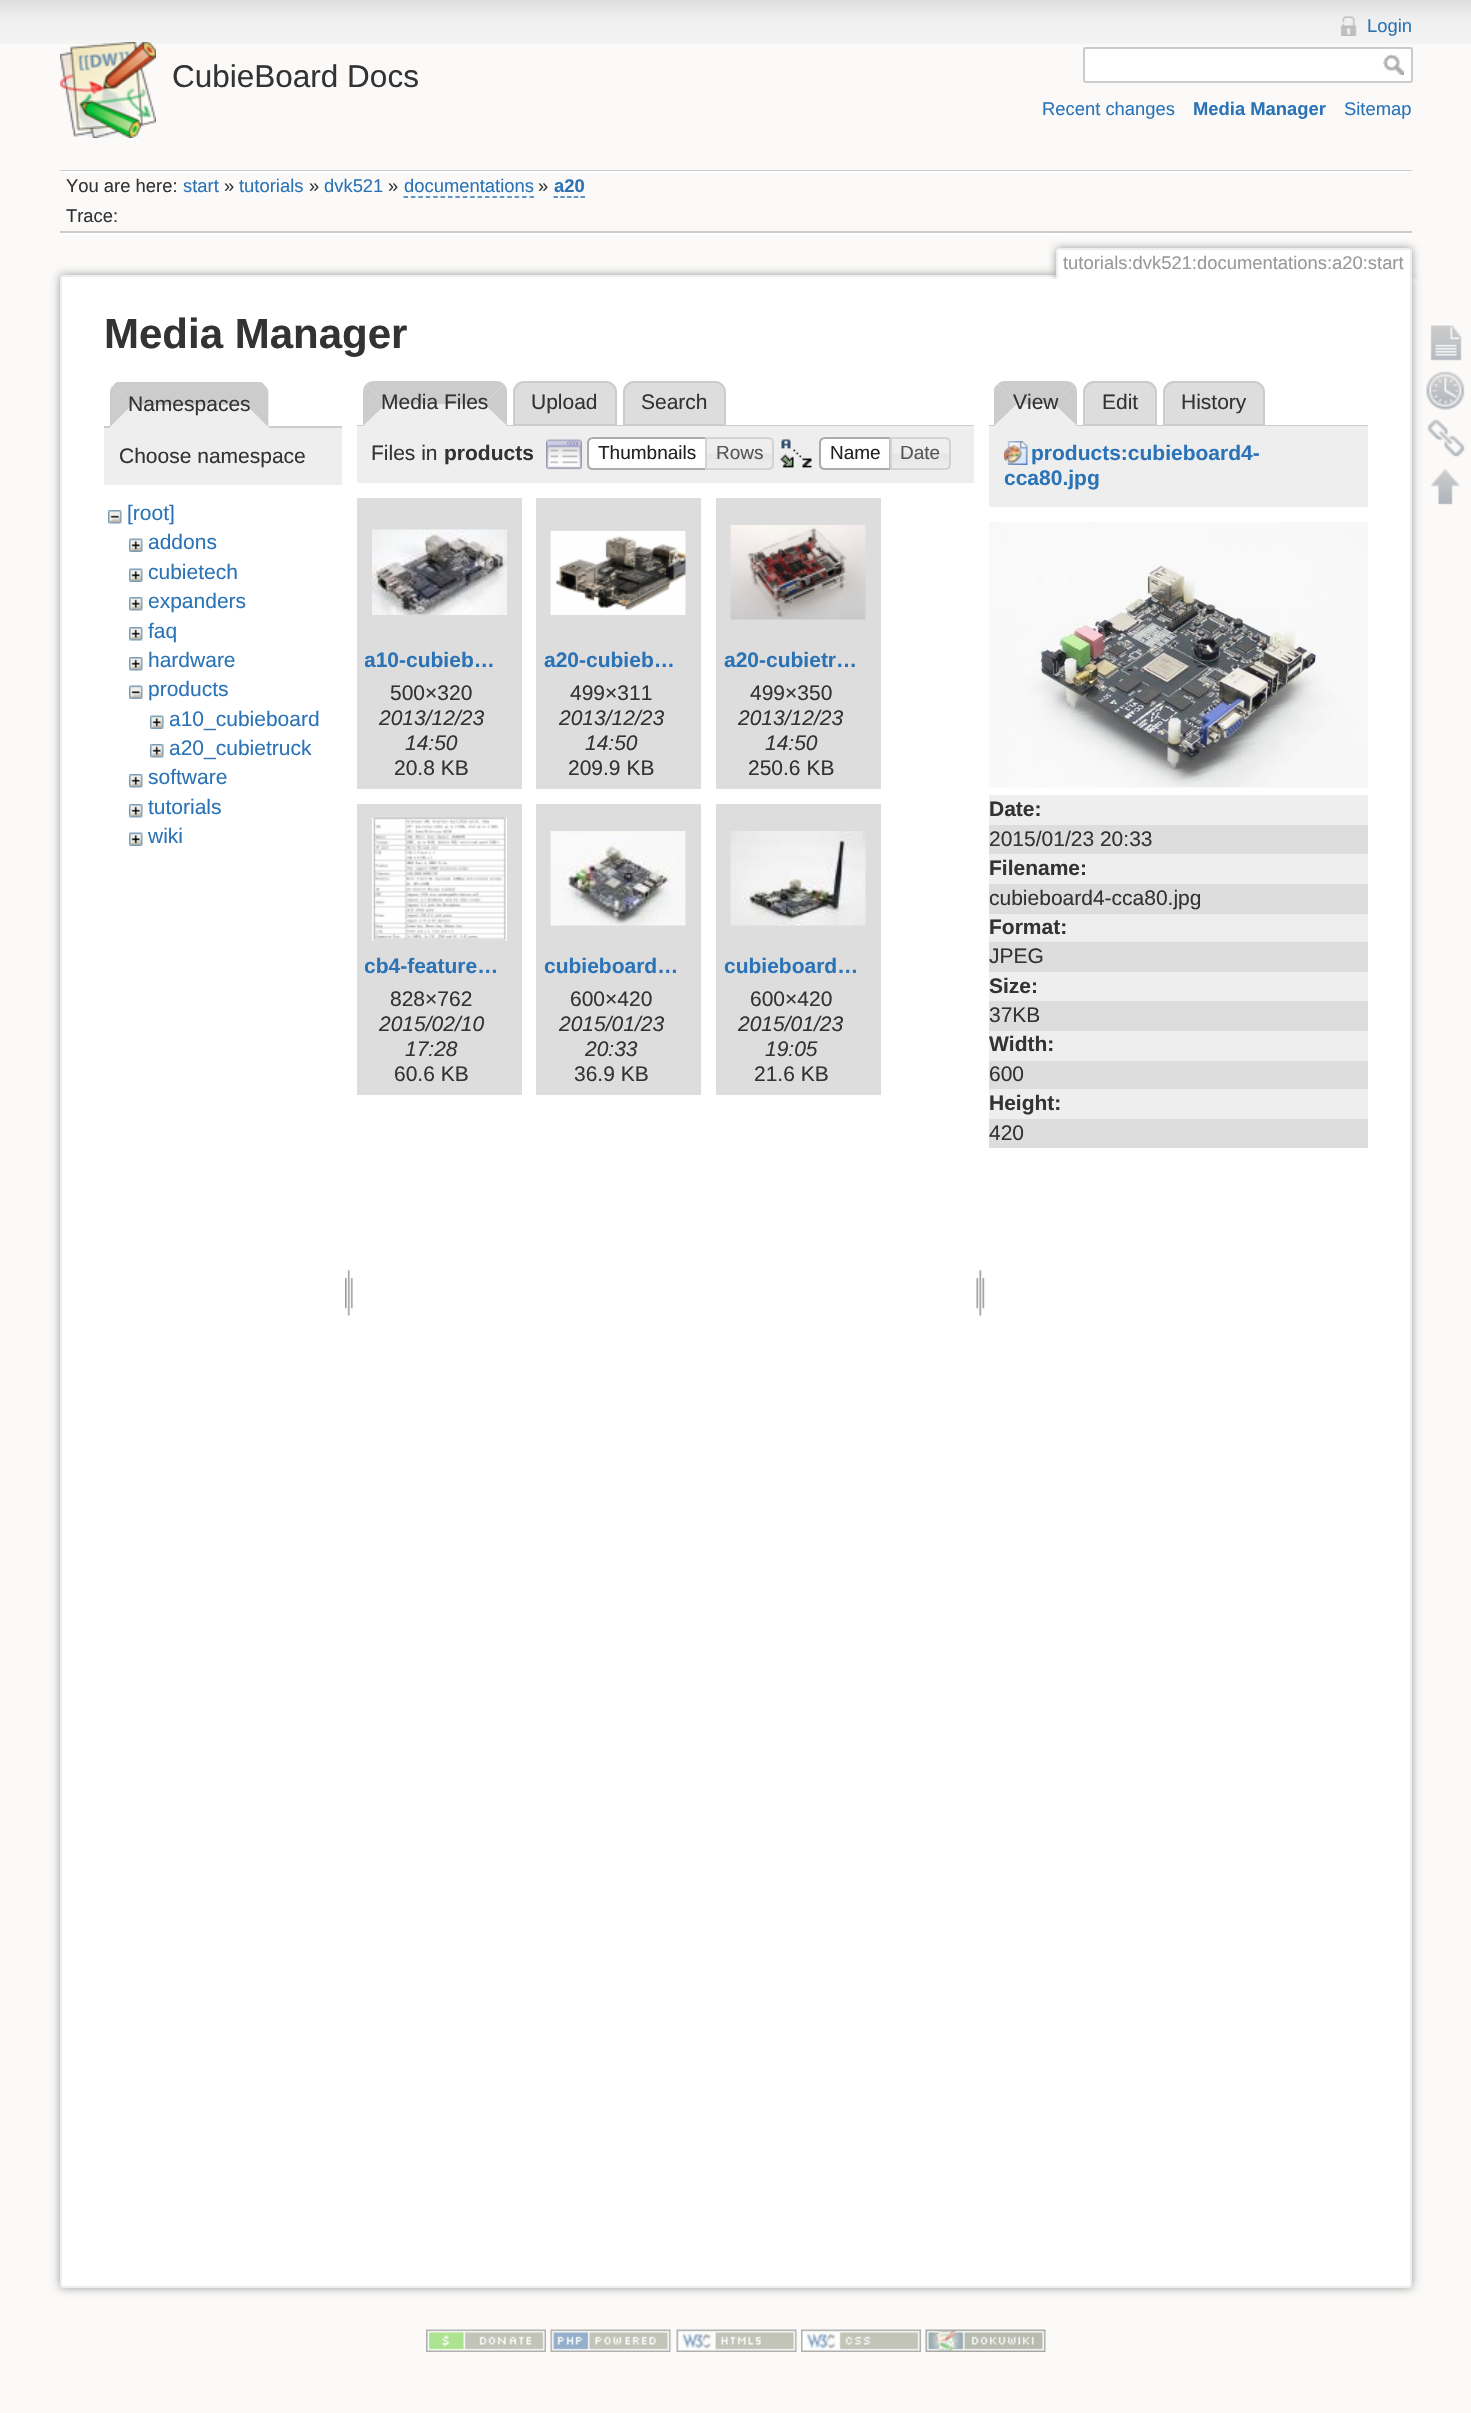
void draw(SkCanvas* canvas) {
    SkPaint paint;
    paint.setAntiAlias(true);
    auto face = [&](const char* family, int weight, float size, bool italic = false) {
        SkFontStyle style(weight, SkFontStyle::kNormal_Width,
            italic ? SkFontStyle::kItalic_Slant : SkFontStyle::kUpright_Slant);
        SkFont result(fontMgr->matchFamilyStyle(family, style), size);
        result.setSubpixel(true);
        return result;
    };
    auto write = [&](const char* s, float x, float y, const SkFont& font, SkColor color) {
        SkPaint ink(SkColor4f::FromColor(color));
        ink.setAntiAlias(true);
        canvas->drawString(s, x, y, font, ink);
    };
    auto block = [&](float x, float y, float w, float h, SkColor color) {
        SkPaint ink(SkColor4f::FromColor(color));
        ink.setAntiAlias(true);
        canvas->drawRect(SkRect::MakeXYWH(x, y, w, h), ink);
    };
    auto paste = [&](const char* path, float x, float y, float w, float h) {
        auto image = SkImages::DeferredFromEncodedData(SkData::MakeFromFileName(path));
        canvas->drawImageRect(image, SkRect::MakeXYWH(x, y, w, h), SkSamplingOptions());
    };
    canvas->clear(SkColorSetRGB(251, 250, 249));
    paste("pic1.png", 0, 0, 1471, 44);
    paste("pic2.png", 60, 42, 96, 96);
    auto kFont1 = face("Liberation Sans", 400, 31.5f);
    write("CubieBoard Docs", 172, 87, kFont1, SkColorSetRGB(51, 51, 51));
    paste("pic3.png", 1340, 16, 17, 20);
    auto kFont2 = face("Liberation Sans", 400, 18.4f);
    write("Login", 1367, 32, kFont2, SkColorSetRGB(43, 115, 183));
    paint.setColor(SK_ColorWHITE);
    canvas->drawRoundRect(SkRect::MakeXYWH(1084, 48, 328, 34), 2, 2, paint);
    paint.setStyle(SkPaint::kStroke_Style);
    paint.setStrokeWidth(2);
    paint.setColor(SkColorSetRGB(204, 204, 204));
    canvas->drawRoundRect(SkRect::MakeXYWH(1084, 48, 328, 34), 2, 2, paint);
    paste("pic4.png", 1383, 54, 21, 21);
    write("Recent changes", 1042, 115, kFont2, SkColorSetRGB(43, 115, 183));
    auto kFont3 = face("Liberation Sans", 700, 18.4f);
    write("Media Manager", 1193, 115, kFont3, SkColorSetRGB(43, 115, 183));
    write("Sitemap", 1344, 115, kFont2, SkColorSetRGB(43, 115, 183));
    block(60, 170, 1352, 1, SkColorSetRGB(204, 204, 204));
    block(60, 233, 1352, 2, SK_ColorWHITE);
    block(60, 171, 1352, 2, SK_ColorWHITE);
    write("You are here:", 66, 192, kFont2, SkColorSetRGB(51, 51, 51));
    write("start", 183, 192, kFont2, SkColorSetRGB(43, 115, 183));
    write("»", 224, 192, kFont2, SkColorSetRGB(51, 51, 51));
    write("tutorials", 239, 192, kFont2, SkColorSetRGB(43, 115, 183));
    write("»", 309, 192, kFont2, SkColorSetRGB(51, 51, 51));
    write("dvk521", 324, 192, kFont2, SkColorSetRGB(43, 115, 183));
    write("»", 388, 192, kFont2, SkColorSetRGB(51, 51, 51));
    write("documentations", 404, 192, kFont2, SkColorSetRGB(43, 115, 183));
    paint.setStrokeWidth(1.5f);
    paint.setColor(SkColorSetRGB(43, 115, 183));
    paint.setPathEffect(SkDashPathEffect::Make({{4.5f, 2.91f}}, 0));
    canvas->drawPath(SkPathBuilder().moveTo(403.5f, 197).lineTo(534, 197).detach(), paint);
    paint.setPathEffect(nullptr);
    write("»", 538, 192, kFont2, SkColorSetRGB(51, 51, 51));
    write("a20", 554, 192, kFont3, SkColorSetRGB(43, 115, 183));
    paint.setPathEffect(SkDashPathEffect::Make({{4.5f, 2.25f}}, 0));
    canvas->drawPath(SkPathBuilder().moveTo(553.5f, 197).lineTo(585, 197).detach(), paint);
    paint.setPathEffect(nullptr);
    block(60, 231, 1352, 2, SkColorSetRGB(204, 204, 204));
    write("Trace:", 66, 222, kFont2, SkColorSetRGB(51, 51, 51));
    paint.setStyle(SkPaint::kFill_Style);
    paint.setColor(SkColorSetRGB(153, 153, 153));
    paint.setMaskFilter(SkMaskFilter::MakeBlur(kNormal_SkBlurStyle, 5));
    canvas->drawRoundRect(SkRect::MakeXYWH(60, 275, 1352, 2013), 3, 3, paint);
    paint.setMaskFilter(nullptr);
    paint.setColor(SK_ColorWHITE);
    canvas->drawRoundRect(SkRect::MakeXYWH(61, 276, 1350, 2011), 2, 2, paint);
    paint.setStyle(SkPaint::kStroke_Style);
    paint.setStrokeWidth(2);
    paint.setColor(SkColorSetRGB(238, 238, 238));
    canvas->drawRoundRect(SkRect::MakeXYWH(61, 276, 1350, 2011), 2, 2, paint);
    canvas->save();
    canvas->clipRect(SkRect::MakeXYWH(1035, 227, 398, 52));
    paint.setStyle(SkPaint::kFill_Style);
    paint.setColor(SkColorSetRGB(153, 153, 153));
    paint.setMaskFilter(SkMaskFilter::MakeBlur(kNormal_SkBlurStyle, 4.5f));
    canvas->drawRoundRect(SkRect::MakeXYWH(1056, 248, 356, 31), 3, 3, paint);
    paint.setMaskFilter(nullptr);
    canvas->restore();
    block(1058, 250, 352, 29, SK_ColorWHITE);
    block(1058, 248, 352, 2, SkColorSetRGB(238, 238, 238));
    block(1410, 249, 2, 30, SkColorSetRGB(238, 238, 238));
    block(1056, 249, 2, 30, SkColorSetRGB(238, 238, 238));
    write("tutorials:dvk521:documentations:a20:start", 1063, 269, kFont2, SkColorSetRGB(153, 153, 153));
    auto kFont4 = face("Liberation Sans", 700, 42);
    write("Media Manager", 104, 348, kFont4, SkColorSetRGB(51, 51, 51));
    block(104, 426, 238, 2, SkColorSetRGB(204, 204, 204));
    paint.setColor(SkColorSetRGB(238, 238, 238));
    canvas->drawPath(SkPathBuilder().moveTo(121, 383).lineTo(258, 383).cubicTo(264, 383, 269, 388, 269, 394).lineTo(269, 428).lineTo(110, 428).lineTo(110, 394).cubicTo(110, 388, 115, 383, 121, 383).close().detach(), paint);
    paint.setColor(SkColorSetRGB(204, 204, 204));
    canvas->drawPath(SkPathBuilder().moveTo(261, 382).lineTo(117, 382).cubicTo(115, 383, 114, 384, 113, 386).lineTo(132, 405).lineTo(246, 405).lineTo(265, 386).cubicTo(264, 384, 263, 383, 261, 382).close().detach(), paint);
    canvas->drawPath(SkPathBuilder().moveTo(265, 386).lineTo(246, 405).lineTo(268, 427).lineTo(268, 393).cubicTo(268, 390, 267, 387, 265, 386).close().detach(), paint);
    paint.setColor(SkColorSetRGB(238, 238, 238));
    canvas->drawPath(SkPathBuilder().moveTo(268, 427).lineTo(246, 405).lineTo(132, 405).lineTo(110, 428).lineTo(268, 428).close().detach(), paint);
    paint.setColor(SkColorSetRGB(204, 204, 204));
    canvas->drawPath(SkPathBuilder().moveTo(110, 427).lineTo(132, 405).lineTo(113, 386).cubicTo(111, 387, 110, 390, 110, 393).close().detach(), paint);
    auto kFont5 = face("Liberation Sans", 400, 21);
    write("Namespaces", 128, 411, kFont5, SkColorSetRGB(51, 51, 51));
    block(104, 428, 238, 57, SkColorSetRGB(238, 238, 238));
    write("Choose namespace", 119, 463, kFont5, SkColorSetRGB(51, 51, 51));
    paste("pic5.png", 108, 510, 14, 14);
    write("[root]", 127, 520, kFont5, SkColorSetRGB(43, 115, 183));
    paste("pic6.png", 129, 538, 14, 14);
    write("addons", 148, 549, kFont5, SkColorSetRGB(43, 115, 183));
    paste("pic6.png", 129, 568, 14, 14);
    write("cubietech", 148, 579, kFont5, SkColorSetRGB(43, 115, 183));
    paste("pic7.png", 129, 597, 14, 14);
    write("expanders", 148, 608, kFont5, SkColorSetRGB(43, 115, 183));
    paste("pic7.png", 129, 627, 14, 14);
    write("faq", 148, 638, kFont5, SkColorSetRGB(43, 115, 183));
    paste("pic7.png", 129, 657, 14, 14);
    write("hardware", 148, 667, kFont5, SkColorSetRGB(43, 115, 183));
    paste("pic8.png", 129, 685, 14, 14);
    write("products", 148, 696, kFont5, SkColorSetRGB(43, 115, 183));
    paste("pic6.png", 150, 715, 14, 14);
    write("a10_cubieboard", 169, 726, kFont5, SkColorSetRGB(43, 115, 183));
    paste("pic7.png", 150, 744, 14, 14);
    write("a20_cubietruck", 169, 755, kFont5, SkColorSetRGB(43, 115, 183));
    paste("pic7.png", 129, 774, 14, 14);
    write("software", 148, 784, kFont5, SkColorSetRGB(43, 115, 183));
    paste("pic7.png", 129, 804, 14, 14);
    write("tutorials", 148, 814, kFont5, SkColorSetRGB(43, 115, 183));
    paste("pic6.png", 129, 832, 14, 14);
    write("wiki", 148, 843, kFont5, SkColorSetRGB(43, 115, 183));
    paste("pic9.png", 345, 1269, 8, 47);
    canvas->drawPath(SkPathBuilder().moveTo(374, 381).lineTo(496, 381).cubicTo(499, 381, 502, 382, 504, 384).lineTo(484, 404).lineTo(386, 404).lineTo(366, 384).cubicTo(368, 382, 371, 381, 374, 381).close().detach(), paint);
    paint.setColor(SkColorSetRGB(221, 221, 221));
    canvas->drawPath(SkPathBuilder().moveTo(524, 382).lineTo(606, 382).cubicTo(611.5f, 382, 616, 386.5f, 616, 392).lineTo(616, 425).lineTo(514, 425).lineTo(514, 392).cubicTo(514, 386.5f, 518.5f, 382, 524, 382).close().detach(), paint);
    paint.setStyle(SkPaint::kStroke_Style);
    paint.setColor(SkColorSetRGB(204, 204, 204));
    canvas->drawPath(SkPathBuilder().moveTo(524, 382).lineTo(606, 382).cubicTo(611.5f, 382, 616, 386.5f, 616, 392).lineTo(616, 425).lineTo(514, 425).lineTo(514, 392).cubicTo(514, 386.5f, 518.5f, 382, 524, 382).close().detach(), paint);
    paint.setStyle(SkPaint::kFill_Style);
    paint.setColor(SkColorSetRGB(221, 221, 221));
    canvas->drawPath(SkPathBuilder().moveTo(634, 382).lineTo(715, 382).cubicTo(720.5f, 382, 725, 386.5f, 725, 392).lineTo(725, 425).lineTo(624, 425).lineTo(624, 392).cubicTo(624, 386.5f, 628.5f, 382, 634, 382).close().detach(), paint);
    paint.setStyle(SkPaint::kStroke_Style);
    paint.setColor(SkColorSetRGB(204, 204, 204));
    canvas->drawPath(SkPathBuilder().moveTo(634, 382).lineTo(715, 382).cubicTo(720.5f, 382, 725, 386.5f, 725, 392).lineTo(725, 425).lineTo(624, 425).lineTo(624, 392).cubicTo(624, 386.5f, 628.5f, 382, 634, 382).close().detach(), paint);
    block(357, 425, 617, 1, SkColorSetRGB(204, 204, 204));
    paint.setStyle(SkPaint::kFill_Style);
    canvas->drawPath(SkPathBuilder().moveTo(504, 384).lineTo(484, 404).lineTo(507, 426).lineTo(507, 392).cubicTo(507, 389, 506, 386, 504, 384).close().detach(), paint);
    paint.setColor(SkColorSetRGB(238, 238, 238));
    canvas->drawPath(SkPathBuilder().moveTo(507, 426).lineTo(484, 404).lineTo(386, 404).lineTo(363, 426).close().detach(), paint);
    paint.setColor(SkColorSetRGB(204, 204, 204));
    canvas->drawPath(SkPathBuilder().moveTo(363, 426).lineTo(363, 392).cubicTo(363, 389, 364, 386, 366, 384).lineTo(386, 404).close().detach(), paint);
    write("Media Files", 381, 409, kFont5, SkColorSetRGB(51, 51, 51));
    write("Upload", 531, 409, kFont5, SkColorSetRGB(51, 51, 51));
    write("Search", 641, 409, kFont5, SkColorSetRGB(51, 51, 51));
    block(357, 426, 617, 57, SkColorSetRGB(238, 238, 238));
    write("Files in", 371, 460, kFont5, SkColorSetRGB(51, 51, 51));
    auto kFont6 = face("Liberation Sans", 700, 21);
    write("products", 444, 460, kFont6, SkColorSetRGB(51, 51, 51));
    paste("pic10.png", 546, 439, 36, 31);
    paint.setColor(SK_ColorWHITE);
    canvas->drawPath(SkPathBuilder().moveTo(593, 437).lineTo(707, 437).lineTo(707, 470).lineTo(593, 470).cubicTo(589.5f, 470, 587, 467.5f, 587, 464).lineTo(587, 443).cubicTo(587, 439.5f, 589.5f, 437, 593, 437).close().detach(), paint);
    paste("pic11.png", 586, 436, 120, 31);
    paint.setStyle(SkPaint::kStroke_Style);
    paint.setColor(SkColorSetRGB(170, 170, 170));
    canvas->drawPath(SkPathBuilder().moveTo(593, 438).lineTo(706, 438).lineTo(706, 469).lineTo(593, 469).cubicTo(590, 469, 588, 467, 588, 464).lineTo(588, 443).cubicTo(588, 440, 590, 438, 593, 438).close().detach(), paint);
    auto kFont7 = face("Liberation Sans", 400, 19);
    write("Thumbnails", 598, 459, kFont7, SkColorSetRGB(33, 33, 33));
    paste("pic12.png", 707, 437, 67, 32);
    paint.setColor(SkColorSetRGB(211, 211, 211));
    canvas->drawPath(SkPathBuilder().moveTo(706, 438).lineTo(768, 438).cubicTo(771, 438, 773, 440, 773, 443).lineTo(773, 464).cubicTo(773, 467, 771, 469, 768, 469).lineTo(706, 469).close().detach(), paint);
    write("Rows", 716, 459, kFont7, SkColorSetRGB(85, 85, 85));
    paste("pic13.png", 779, 439, 33, 29);
    paint.setStyle(SkPaint::kFill_Style);
    paint.setColor(SK_ColorWHITE);
    canvas->drawPath(SkPathBuilder().moveTo(825, 437).lineTo(891, 437).lineTo(891, 470).lineTo(825, 470).cubicTo(821.5f, 470, 819, 467.5f, 819, 464).lineTo(819, 443).cubicTo(819, 439.5f, 821.5f, 437, 825, 437).close().detach(), paint);
    paste("pic14.png", 819, 436, 72, 5);
    paint.setStyle(SkPaint::kStroke_Style);
    paint.setColor(SkColorSetRGB(170, 170, 170));
    canvas->drawPath(SkPathBuilder().moveTo(825, 438).lineTo(890, 438).lineTo(890, 469).lineTo(825, 469).cubicTo(822, 469, 820, 467, 820, 464).lineTo(820, 443).cubicTo(820, 440, 822, 438, 825, 438).close().detach(), paint);
    write("Name", 830, 459, kFont7, SkColorSetRGB(33, 33, 33));
    paste("pic15.png", 889, 437, 62, 33);
    paint.setColor(SkColorSetRGB(211, 211, 211));
    canvas->drawPath(SkPathBuilder().moveTo(891, 438).lineTo(945, 438).cubicTo(948, 438, 950, 440, 950, 443).lineTo(950, 464).cubicTo(950, 467, 948, 469, 945, 469).lineTo(891, 469).close().detach(), paint);
    write("Date", 900, 459, kFont7, SkColorSetRGB(85, 85, 85));
    block(357, 498, 165, 291, SkColorSetRGB(221, 221, 221));
    paste("pic16.png", 372, 529, 135, 86);
    canvas->save();
    canvas->clipRect(SkRect::MakeXYWH(365, 641, 135, 39));
    write("a10-cubieb…", 364, 667, kFont6, SkColorSetRGB(43, 115, 183));
    canvas->restore();
    write("500×320", 390, 700, kFont5, SkColorSetRGB(51, 51, 51));
    auto kFont8 = face("Liberation Sans", 400, 21, true);
    write("2013/12/23", 379, 725, kFont8, SkColorSetRGB(51, 51, 51));
    write("14:50", 405, 750, kFont8, SkColorSetRGB(51, 51, 51));
    write("20.8 KB", 394, 775, kFont5, SkColorSetRGB(51, 51, 51));
    block(536, 498, 165, 291, SkColorSetRGB(221, 221, 221));
    paste("pic17.png", 550, 531, 136, 84);
    write("a20-cubieb…", 544, 667, kFont6, SkColorSetRGB(43, 115, 183));
    write("499×311", 570, 700, kFont5, SkColorSetRGB(51, 51, 51));
    write("2013/12/23", 559, 725, kFont8, SkColorSetRGB(51, 51, 51));
    write("14:50", 585, 750, kFont8, SkColorSetRGB(51, 51, 51));
    write("209.9 KB", 568, 775, kFont5, SkColorSetRGB(51, 51, 51));
    block(716, 498, 165, 291, SkColorSetRGB(221, 221, 221));
    paste("pic18.png", 730, 525, 136, 95);
    write("a20-cubietr…", 724, 667, kFont6, SkColorSetRGB(43, 115, 183));
    write("499×350", 750, 700, kFont5, SkColorSetRGB(51, 51, 51));
    write("2013/12/23", 738, 725, kFont8, SkColorSetRGB(51, 51, 51));
    write("14:50", 765, 750, kFont8, SkColorSetRGB(51, 51, 51));
    write("250.6 KB", 748, 775, kFont5, SkColorSetRGB(51, 51, 51));
    block(357, 804, 165, 291, SkColorSetRGB(221, 221, 221));
    paste("pic19.png", 372, 817, 135, 124);
    canvas->save();
    canvas->clipRect(SkRect::MakeXYWH(365, 947, 135, 39));
    write("cb4-feature…", 364, 973, kFont6, SkColorSetRGB(43, 115, 183));
    canvas->restore();
    write("828×762", 390, 1006, kFont5, SkColorSetRGB(51, 51, 51));
    write("2015/02/10", 379, 1031, kFont8, SkColorSetRGB(51, 51, 51));
    write("17:28", 405, 1056, kFont8, SkColorSetRGB(51, 51, 51));
    write("60.6 KB", 394, 1081, kFont5, SkColorSetRGB(51, 51, 51));
    block(536, 804, 165, 291, SkColorSetRGB(221, 221, 221));
    paste("pic20.png", 550, 831, 136, 95);
    write("cubieboard…", 544, 973, kFont6, SkColorSetRGB(43, 115, 183));
    write("600×420", 570, 1006, kFont5, SkColorSetRGB(51, 51, 51));
    write("2015/01/23", 559, 1031, kFont8, SkColorSetRGB(51, 51, 51));
    write("20:33", 585, 1056, kFont8, SkColorSetRGB(51, 51, 51));
    write("36.9 KB", 574, 1081, kFont5, SkColorSetRGB(51, 51, 51));
    block(716, 804, 165, 291, SkColorSetRGB(221, 221, 221));
    paste("pic21.png", 730, 831, 136, 95);
    write("cubieboard…", 724, 973, kFont6, SkColorSetRGB(43, 115, 183));
    write("600×420", 750, 1006, kFont5, SkColorSetRGB(51, 51, 51));
    write("2015/01/23", 738, 1031, kFont8, SkColorSetRGB(51, 51, 51));
    write("19:05", 765, 1056, kFont8, SkColorSetRGB(51, 51, 51));
    write("21.6 KB", 754, 1081, kFont5, SkColorSetRGB(51, 51, 51));
    paste("pic22.png", 976, 1269, 9, 47);
    paint.setStyle(SkPaint::kFill_Style);
    paint.setColor(SkColorSetRGB(204, 204, 204));
    canvas->drawPath(SkPathBuilder().moveTo(1005, 381).lineTo(1066, 381).cubicTo(1069, 381, 1072, 382, 1074, 384).lineTo(1054, 404).lineTo(1017, 404).lineTo(998, 384).cubicTo(999, 382, 1002, 381, 1005, 381).close().detach(), paint);
    paint.setColor(SkColorSetRGB(221, 221, 221));
    canvas->drawPath(SkPathBuilder().moveTo(1094, 382).lineTo(1146, 382).cubicTo(1151.5f, 382, 1156, 386.5f, 1156, 392).lineTo(1156, 425).lineTo(1084, 425).lineTo(1084, 392).cubicTo(1084, 386.5f, 1088.5f, 382, 1094, 382).close().detach(), paint);
    paint.setStyle(SkPaint::kStroke_Style);
    paint.setColor(SkColorSetRGB(204, 204, 204));
    canvas->drawPath(SkPathBuilder().moveTo(1094, 382).lineTo(1146, 382).cubicTo(1151.5f, 382, 1156, 386.5f, 1156, 392).lineTo(1156, 425).lineTo(1084, 425).lineTo(1084, 392).cubicTo(1084, 386.5f, 1088.5f, 382, 1094, 382).close().detach(), paint);
    paint.setStyle(SkPaint::kFill_Style);
    paint.setColor(SkColorSetRGB(221, 221, 221));
    canvas->drawPath(SkPathBuilder().moveTo(1174, 382).lineTo(1254, 382).cubicTo(1259.5f, 382, 1264, 386.5f, 1264, 392).lineTo(1264, 425).lineTo(1164, 425).lineTo(1164, 392).cubicTo(1164, 386.5f, 1168.5f, 382, 1174, 382).close().detach(), paint);
    paint.setStyle(SkPaint::kStroke_Style);
    paint.setColor(SkColorSetRGB(204, 204, 204));
    canvas->drawPath(SkPathBuilder().moveTo(1174, 382).lineTo(1254, 382).cubicTo(1259.5f, 382, 1264, 386.5f, 1264, 392).lineTo(1264, 425).lineTo(1164, 425).lineTo(1164, 392).cubicTo(1164, 386.5f, 1168.5f, 382, 1174, 382).close().detach(), paint);
    block(989, 425, 379, 1, SkColorSetRGB(204, 204, 204));
    paint.setStyle(SkPaint::kFill_Style);
    canvas->drawPath(SkPathBuilder().moveTo(1074, 384).lineTo(1054, 404).lineTo(1077, 426).lineTo(1077, 392).cubicTo(1077, 389, 1076, 386, 1074, 384).close().detach(), paint);
    paint.setColor(SkColorSetRGB(238, 238, 238));
    canvas->drawPath(SkPathBuilder().moveTo(1077, 426).lineTo(1054, 404).lineTo(1017, 404).lineTo(994, 426).close().detach(), paint);
    paint.setColor(SkColorSetRGB(204, 204, 204));
    canvas->drawPath(SkPathBuilder().moveTo(994, 426).lineTo(1017, 404).lineTo(998, 384).cubicTo(996, 385, 995, 387, 994, 389).close().detach(), paint);
    write("View", 1013, 409, kFont5, SkColorSetRGB(51, 51, 51));
    write("Edit", 1102, 409, kFont5, SkColorSetRGB(51, 51, 51));
    write("History", 1181, 409, kFont5, SkColorSetRGB(51, 51, 51));
    block(989, 426, 379, 81, SkColorSetRGB(238, 238, 238));
    paste("pic23.png", 1004, 441, 24, 24);
    write("products:cubieboard4-", 1031, 460, kFont6, SkColorSetRGB(43, 115, 183));
    write("cca80.jpg", 1004, 485, kFont6, SkColorSetRGB(43, 115, 183));
    paste("pic24.png", 989, 522, 379, 266);
    block(989, 795, 379, 30, SkColorSetRGB(238, 238, 238));
    write("Date:", 989, 816, kFont6, SkColorSetRGB(51, 51, 51));
    block(989, 825, 379, 29, SkColorSetRGB(221, 221, 221));
    write("2015/01/23 20:33", 989, 846, kFont5, SkColorSetRGB(51, 51, 51));
    block(989, 854, 379, 30, SkColorSetRGB(238, 238, 238));
    write("Filename:", 989, 875, kFont6, SkColorSetRGB(51, 51, 51));
    block(989, 884, 379, 30, SkColorSetRGB(221, 221, 221));
    write("cubieboard4-cca80.jpg", 989, 905, kFont5, SkColorSetRGB(51, 51, 51));
    block(989, 914, 379, 28, SkColorSetRGB(238, 238, 238));
    write("Format:", 989, 934, kFont6, SkColorSetRGB(51, 51, 51));
    block(989, 942, 379, 30, SkColorSetRGB(221, 221, 221));
    write("JPEG", 989, 963, kFont5, SkColorSetRGB(51, 51, 51));
    block(989, 972, 379, 29, SkColorSetRGB(238, 238, 238));
    write("Size:", 989, 993, kFont6, SkColorSetRGB(51, 51, 51));
    block(989, 1001, 379, 30, SkColorSetRGB(221, 221, 221));
    write("37KB", 989, 1022, kFont5, SkColorSetRGB(51, 51, 51));
    block(989, 1031, 379, 30, SkColorSetRGB(238, 238, 238));
    write("Width:", 989, 1051, kFont6, SkColorSetRGB(51, 51, 51));
    block(989, 1061, 379, 28, SkColorSetRGB(221, 221, 221));
    write("600", 989, 1081, kFont5, SkColorSetRGB(51, 51, 51));
    block(989, 1089, 379, 30, SkColorSetRGB(238, 238, 238));
    write("Height:", 989, 1110, kFont6, SkColorSetRGB(51, 51, 51));
    block(989, 1119, 379, 29, SkColorSetRGB(221, 221, 221));
    write("420", 989, 1140, kFont5, SkColorSetRGB(51, 51, 51));
    paste("pic25.png", 1430, 325, 32, 36);
    paste("pic26.png", 1426, 371, 39, 39);
    paste("pic27.png", 1427, 419, 38, 38);
    paste("pic28.png", 1431, 469, 29, 36);
    paste("pic29.png", 426, 2329, 120, 23);
    paste("pic30.png", 550, 2329, 121, 23);
    paste("pic31.png", 676, 2329, 121, 23);
    paste("pic32.png", 801, 2329, 120, 23);
    paste("pic33.png", 925, 2329, 121, 23);
}
